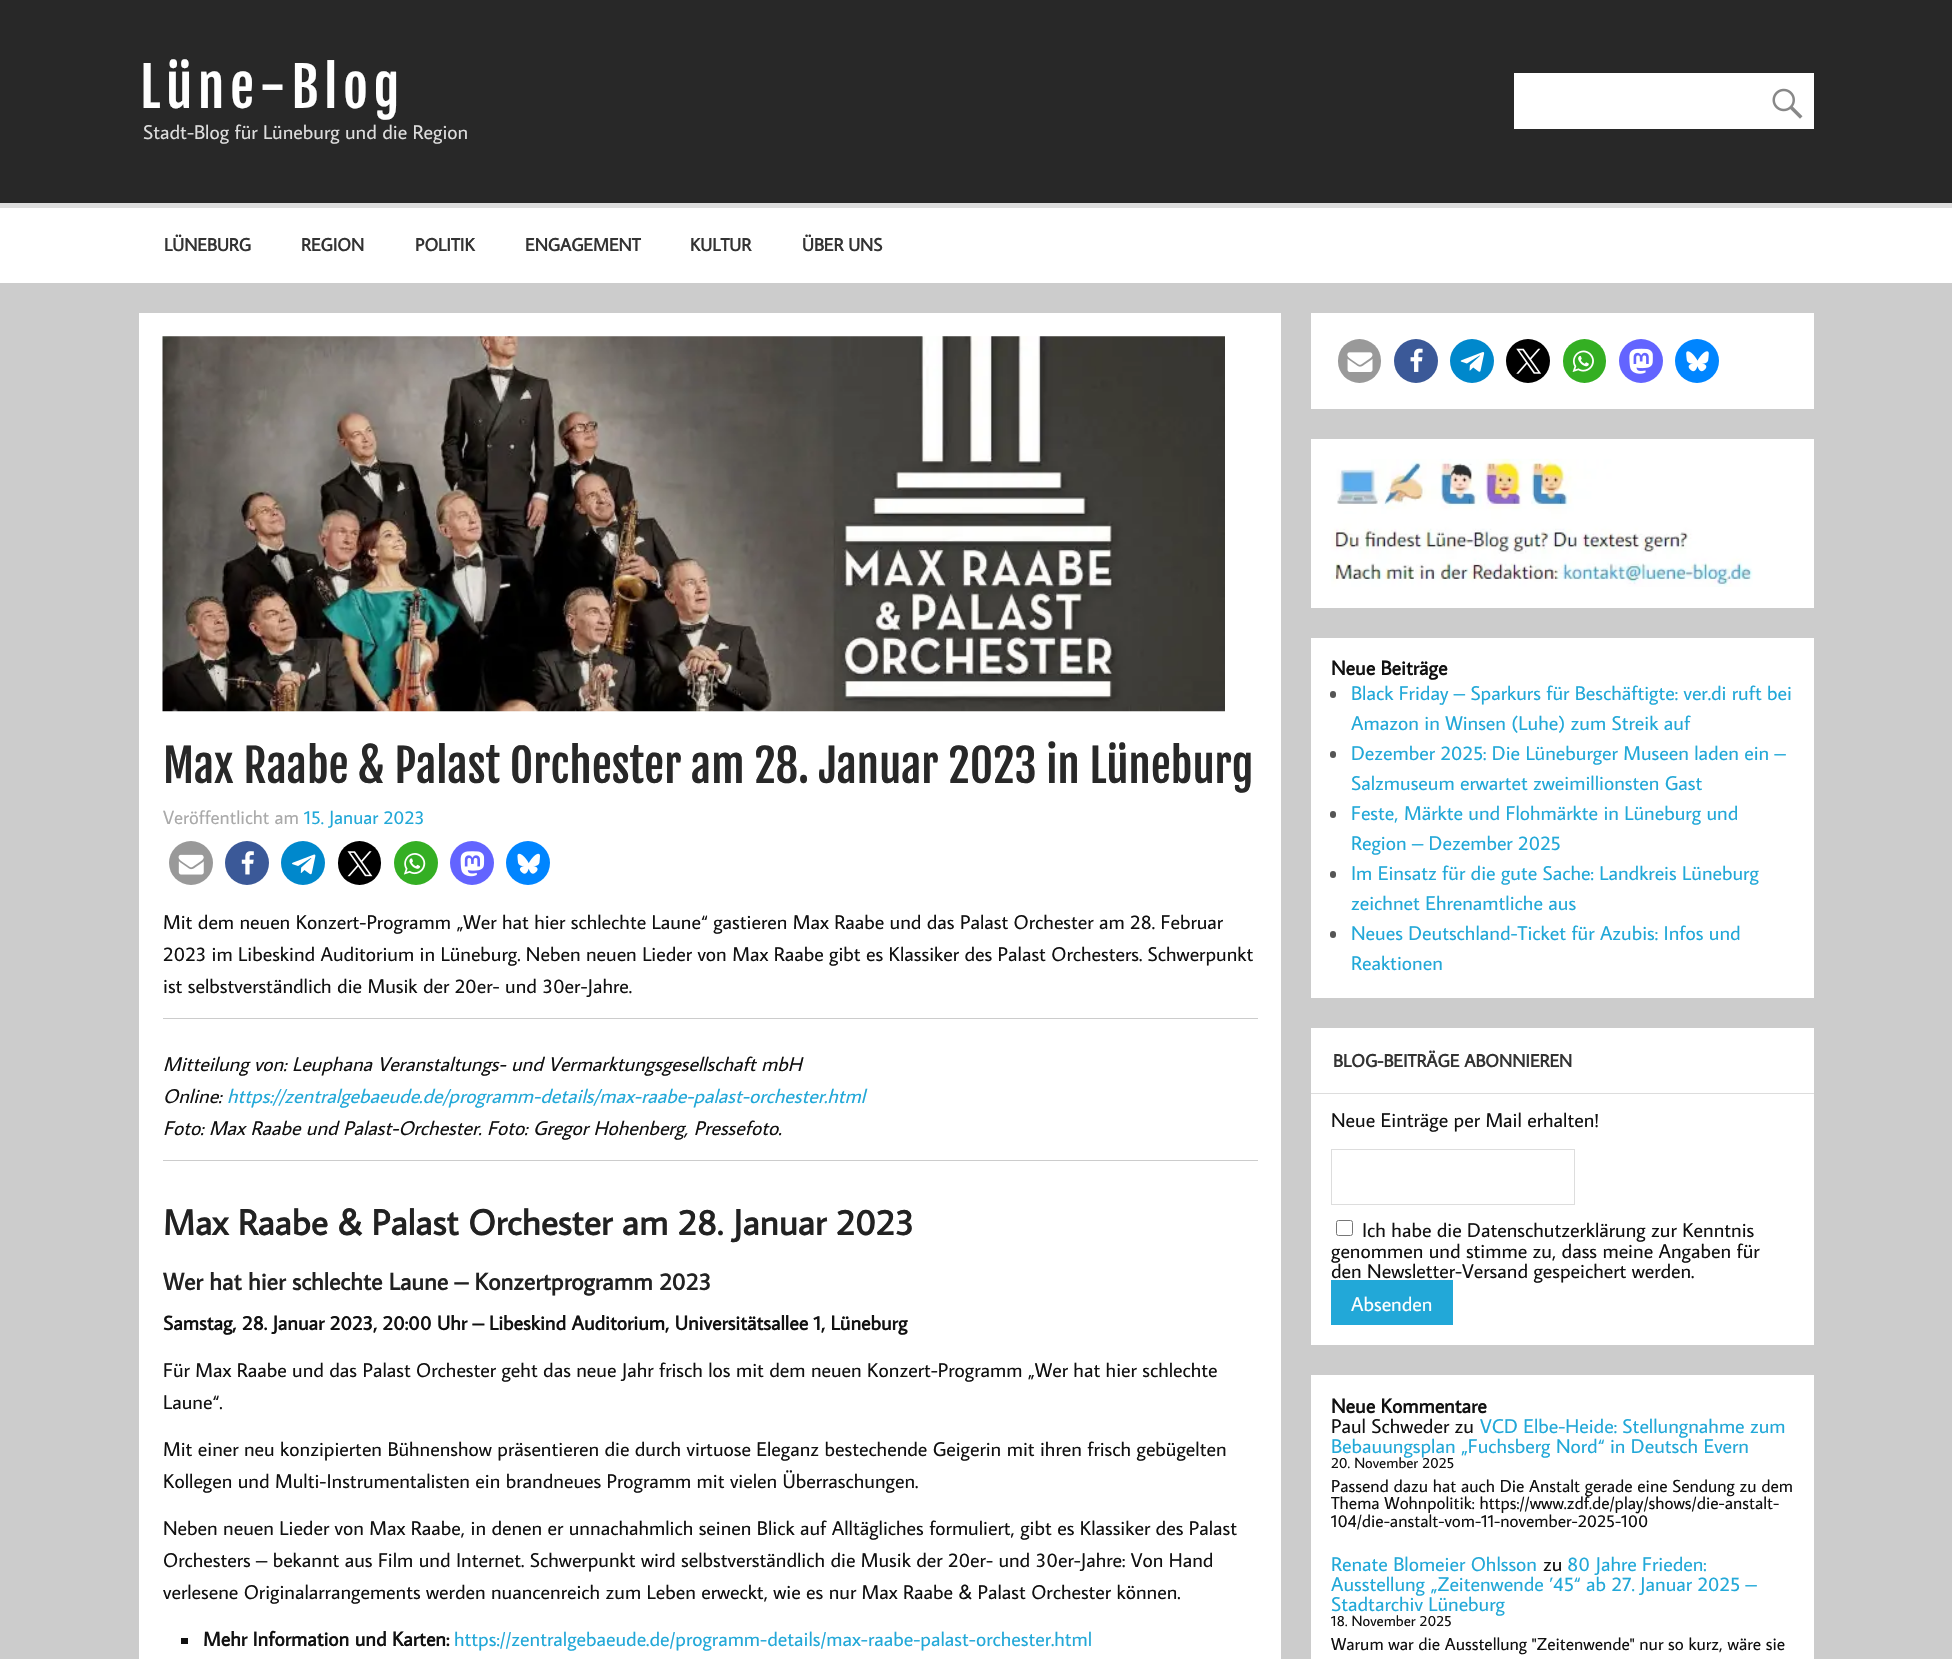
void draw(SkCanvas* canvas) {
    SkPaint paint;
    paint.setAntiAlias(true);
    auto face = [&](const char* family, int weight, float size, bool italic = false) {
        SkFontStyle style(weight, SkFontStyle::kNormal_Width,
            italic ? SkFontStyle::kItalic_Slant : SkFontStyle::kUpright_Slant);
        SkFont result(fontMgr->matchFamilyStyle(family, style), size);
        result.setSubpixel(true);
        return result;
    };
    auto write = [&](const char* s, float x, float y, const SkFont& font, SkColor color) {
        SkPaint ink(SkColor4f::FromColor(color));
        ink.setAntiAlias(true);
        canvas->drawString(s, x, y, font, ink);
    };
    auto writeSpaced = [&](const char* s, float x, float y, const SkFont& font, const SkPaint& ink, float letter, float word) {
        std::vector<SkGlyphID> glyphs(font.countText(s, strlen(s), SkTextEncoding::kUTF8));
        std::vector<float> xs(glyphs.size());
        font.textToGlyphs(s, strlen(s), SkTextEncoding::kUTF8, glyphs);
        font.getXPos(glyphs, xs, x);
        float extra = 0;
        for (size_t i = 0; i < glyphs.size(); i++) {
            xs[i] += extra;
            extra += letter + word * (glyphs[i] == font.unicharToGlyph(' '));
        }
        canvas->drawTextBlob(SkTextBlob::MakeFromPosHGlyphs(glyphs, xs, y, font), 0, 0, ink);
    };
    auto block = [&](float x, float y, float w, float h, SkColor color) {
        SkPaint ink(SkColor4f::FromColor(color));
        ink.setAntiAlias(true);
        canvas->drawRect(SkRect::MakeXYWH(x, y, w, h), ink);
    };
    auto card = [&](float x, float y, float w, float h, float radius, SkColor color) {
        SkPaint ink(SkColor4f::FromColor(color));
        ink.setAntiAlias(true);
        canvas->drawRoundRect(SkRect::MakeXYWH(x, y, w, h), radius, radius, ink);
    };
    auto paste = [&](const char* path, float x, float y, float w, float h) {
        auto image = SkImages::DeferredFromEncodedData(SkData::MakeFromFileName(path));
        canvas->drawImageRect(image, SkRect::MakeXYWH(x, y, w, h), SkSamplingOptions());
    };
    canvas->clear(SkColorSetRGB(204, 204, 204));
    block(0, 0, 1952, 203, SkColorSetRGB(40, 40, 40));
    auto kFont1 = face("Fjalla One", 400, 54);
    paint.setColor(SK_ColorWHITE);
    writeSpaced("Lüne-Blog", 140, 108, kFont1, paint, 5.5f, 0);
    auto kFont2 = face("Average Sans", 400, 20);
    write("Stadt-Blog für Lüneburg und die Region", 143, 139, kFont2, SkColorSetRGB(221, 221, 221));
    block(1514, 73, 300, 56, SK_ColorWHITE);
    paste("pic1.png", 1772, 88, 31, 31);
    block(0, 208, 1952, 75, SK_ColorWHITE);
    block(0, 203, 1952, 5, SkColorSetRGB(221, 221, 221));
    auto kFont3 = face("Average Sans", 700, 18);
    write("LÜNEBURG", 164, 251, kFont3, SkColorSetRGB(51, 51, 51));
    write("REGION", 301, 251, kFont3, SkColorSetRGB(51, 51, 51));
    write("POLITIK", 415, 251, kFont3, SkColorSetRGB(51, 51, 51));
    write("ENGAGEMENT", 525, 251, kFont3, SkColorSetRGB(51, 51, 51));
    write("KULTUR", 690, 251, kFont3, SkColorSetRGB(51, 51, 51));
    write("ÜBER UNS", 802, 251, kFont3, SkColorSetRGB(51, 51, 51));
    block(139, 313, 1142, 1346, SK_ColorWHITE);
    paste("pic2.png", 162, 336, 1063, 376);
    auto kFont4 = face("Fjalla One", 400, 45);
    write("Max Raabe & Palast Orchester am 28. Januar 2023 in Lüneburg", 163, 783, kFont4, SkColorSetRGB(40, 40, 40));
    auto kFont5 = face("Average Sans", 400, 19);
    write("Veröffentlicht am", 163, 824, kFont5, SkColorSetRGB(170, 170, 170));
    write("15. Januar 2023", 304, 824, kFont5, SkColorSetRGB(34, 168, 216));
    paint.setColor(SkColorSetRGB(153, 153, 153));
    canvas->drawCircle(191, 863, 22, paint);
    paste("pic3.png", 178, 854, 26, 21);
    paint.setColor(SkColorSetRGB(59, 89, 152));
    canvas->drawCircle(247, 863, 22, paint);
    paste("pic4.png", 241, 851, 13, 24);
    paint.setColor(SkColorSetRGB(0, 136, 204));
    canvas->drawCircle(303, 863, 22, paint);
    paste("pic5.png", 292, 854, 24, 21);
    card(338, 841, 43, 44, 21.5f, SK_ColorBLACK);
    paste("pic6.png", 347, 851, 26, 26);
    paint.setColor(SkColorSetRGB(52, 175, 35));
    canvas->drawCircle(416, 863, 22, paint);
    paste("pic7.png", 403, 853, 23, 22);
    paint.setColor(SkColorSetRGB(99, 100, 255));
    canvas->drawCircle(472, 863, 22, paint);
    paste("pic8.png", 460, 851, 25, 26);
    paint.setColor(SkColorSetRGB(0, 133, 255));
    canvas->drawCircle(528, 863, 22, paint);
    paste("pic9.png", 517, 853, 23, 21);
    write("Mit dem neuen Konzert-Programm „Wer hat hier schlechte Laune“ gastieren Max Raabe und das Palast Orchester am 28. Februar", 163, 929, kFont2, SkColorSetRGB(17, 17, 17));
    write("2023 im Libeskind Auditorium in Lüneburg. Neben neuen Lieder von Max Raabe gibt es Klassiker des Palast Orchesters. Schwerpunkt", 163, 961, kFont2, SkColorSetRGB(17, 17, 17));
    write("ist selbstverständlich die Musik der 20er- und 30er-Jahre.", 163, 993, kFont2, SkColorSetRGB(17, 17, 17));
    block(163, 1018, 1095, 1, SkColorSetRGB(204, 204, 204));
    auto kFont6 = face("Average Sans", 400, 20, true);
    write("Mitteilung von: Leuphana Veranstaltungs- und Vermarktungsgesellschaft mbH", 163, 1071, kFont6, SkColorSetRGB(17, 17, 17));
    write("Online:", 163, 1103, kFont6, SkColorSetRGB(17, 17, 17));
    write("https://zentralgebaeude.de/programm-details/max-raabe-palast-orchester.html", 227, 1103, kFont6, SkColorSetRGB(34, 168, 216));
    write("Foto: Max Raabe und Palast-Orchester. Foto: Gregor Hohenberg, Pressefoto.", 163, 1135, kFont6, SkColorSetRGB(17, 17, 17));
    block(163, 1160, 1095, 1, SkColorSetRGB(204, 204, 204));
    auto kFont7 = face("Average Sans", 700, 36);
    write("Max Raabe & Palast Orchester am 28. Januar 2023", 163, 1235, kFont7, SkColorSetRGB(34, 34, 34));
    auto kFont8 = face("Average Sans", 700, 24);
    write("Wer hat hier schlechte Laune – Konzertprogramm 2023", 163, 1290, kFont8, SkColorSetRGB(34, 34, 34));
    auto kFont9 = face("Average Sans", 700, 20);
    write("Samstag, 28. Januar 2023, 20:00 Uhr – Libeskind Auditorium, Universitätsallee 1, Lüneburg", 163, 1330, kFont9, SkColorSetRGB(17, 17, 17));
    write("Für Max Raabe und das Palast Orchester geht das neue Jahr frisch los mit dem neuen Konzert-Programm „Wer hat hier schlechte", 163, 1377, kFont2, SkColorSetRGB(17, 17, 17));
    write("Laune“.", 163, 1409, kFont2, SkColorSetRGB(17, 17, 17));
    write("Mit einer neu konzipierten Bühnenshow präsentieren die durch virtuose Eleganz bestechende Geigerin mit ihren frisch gebügelten", 163, 1456, kFont2, SkColorSetRGB(17, 17, 17));
    write("Kollegen und Multi-Instrumentalisten ein brandneues Programm mit vielen Überraschungen.", 163, 1488, kFont2, SkColorSetRGB(17, 17, 17));
    write("Neben neuen Lieder von Max Raabe, in denen er unnachahmlich seinen Blick auf Alltägliches formuliert, gibt es Klassiker des Palast", 163, 1535, kFont2, SkColorSetRGB(17, 17, 17));
    write("Orchesters – bekannt aus Film und Internet. Schwerpunkt wird selbstverständlich die Musik der 20er- und 30er-Jahre: Von Hand", 163, 1567, kFont2, SkColorSetRGB(17, 17, 17));
    write("verlesene Originalarrangements werden nuancenreich zum Leben erweckt, wie es nur Max Raabe & Palast Orchester können.", 163, 1599, kFont2, SkColorSetRGB(17, 17, 17));
    block(181, 1638, 7, 6, SkColorSetRGB(17, 17, 17));
    write("Mehr Information und Karten:", 203, 1646, kFont9, SkColorSetRGB(17, 17, 17));
    write("https://zentralgebaeude.de/programm-details/max-raabe-palast-orchester.html", 454, 1646, kFont2, SkColorSetRGB(34, 168, 216));
    block(1311, 313, 503, 96, SK_ColorWHITE);
    card(1338, 339, 43, 44, 21.5f, SkColorSetRGB(153, 153, 153));
    paste("pic10.png", 1347, 352, 26, 20);
    paint.setColor(SkColorSetRGB(59, 89, 152));
    canvas->drawCircle(1416, 361, 22, paint);
    paste("pic11.png", 1410, 348, 13, 24);
    paint.setColor(SkColorSetRGB(0, 136, 204));
    canvas->drawCircle(1472, 361, 22, paint);
    paste("pic12.png", 1460, 352, 25, 20);
    paint.setColor(SK_ColorBLACK);
    canvas->drawCircle(1528, 361, 22, paint);
    paste("pic13.png", 1516, 348, 26, 26);
    card(1563, 339, 43, 44, 21.5f, SkColorSetRGB(52, 175, 35));
    paste("pic14.png", 1572, 350, 22, 22);
    paint.setColor(SkColorSetRGB(99, 100, 255));
    canvas->drawCircle(1641, 361, 22, paint);
    paste("pic15.png", 1629, 348, 24, 26);
    paint.setColor(SkColorSetRGB(0, 133, 255));
    canvas->drawCircle(1697, 361, 22, paint);
    paste("pic16.png", 1686, 351, 23, 21);
    block(1311, 439, 503, 169, SK_ColorWHITE);
    paste("pic17.png", 1331, 458, 422, 129);
    block(1311, 638, 503, 360, SK_ColorWHITE);
    write("Neue Beiträge", 1331, 675, kFont9, SkColorSetRGB(17, 17, 17));
    card(1330, 691, 6, 7, 3, SkColorSetRGB(85, 85, 85));
    write("Black Friday – Sparkurs für Beschäftigte: ver.di ruft bei", 1351, 700, kFont2, SkColorSetRGB(34, 168, 216));
    write("Amazon in Winsen (Luhe) zum Streik auf", 1351, 730, kFont2, SkColorSetRGB(34, 168, 216));
    card(1330, 751, 6, 7, 3, SkColorSetRGB(85, 85, 85));
    write("Dezember 2025: Die Lüneburger Museen laden ein –", 1351, 760, kFont2, SkColorSetRGB(34, 168, 216));
    write("Salzmuseum erwartet zweimillionsten Gast", 1351, 790, kFont2, SkColorSetRGB(34, 168, 216));
    card(1330, 811, 6, 7, 3, SkColorSetRGB(85, 85, 85));
    write("Feste, Märkte und Flohmärkte in Lüneburg und", 1351, 820, kFont2, SkColorSetRGB(34, 168, 216));
    write("Region – Dezember 2025", 1351, 850, kFont2, SkColorSetRGB(34, 168, 216));
    card(1330, 871, 6, 7, 3, SkColorSetRGB(85, 85, 85));
    write("Im Einsatz für die gute Sache: Landkreis Lüneburg", 1351, 880, kFont2, SkColorSetRGB(34, 168, 216));
    write("zeichnet Ehrenamtliche aus", 1351, 910, kFont2, SkColorSetRGB(34, 168, 216));
    card(1330, 931, 6, 7, 3, SkColorSetRGB(85, 85, 85));
    write("Neues Deutschland-Ticket für Azubis: Infos und", 1351, 940, kFont2, SkColorSetRGB(34, 168, 216));
    write("Reaktionen", 1351, 970, kFont2, SkColorSetRGB(34, 168, 216));
    block(1311, 1028, 503, 317, SK_ColorWHITE);
    block(1311, 1093, 503, 1, SkColorSetRGB(221, 221, 221));
    write("BLOG-BEITRÄGE ABONNIEREN", 1333, 1067, kFont3, SkColorSetRGB(51, 51, 51));
    write("Neue Einträge per Mail erhalten!", 1331, 1127, kFont2, SkColorSetRGB(17, 17, 17));
    paint.setStyle(SkPaint::kStroke_Style);
    paint.setStrokeWidth(1);
    paint.setColor(SkColorSetRGB(221, 221, 221));
    canvas->drawRect(SkRect::MakeXYWH(1331.5f, 1149.5f, 243, 55), paint);
    paint.setColor(SkColorSetRGB(118, 118, 118));
    canvas->drawRoundRect(SkRect::MakeXYWH(1336.5f, 1220.5f, 16, 15), 2, 2, paint);
    write("Ich habe die Datenschutzerklärung zur Kenntnis", 1362, 1237, kFont2, SkColorSetRGB(17, 17, 17));
    write("genommen und stimme zu, dass meine Angaben für", 1331, 1258, kFont2, SkColorSetRGB(17, 17, 17));
    write("den Newsletter-Versand gespeichert werden.", 1331, 1278, kFont2, SkColorSetRGB(17, 17, 17));
    block(1331, 1280, 122, 45, SkColorSetRGB(34, 168, 216));
    write("Absenden", 1351, 1311, kFont2, SK_ColorWHITE);
    block(1311, 1375, 503, 284, SK_ColorWHITE);
    write("Neue Kommentare", 1331, 1413, kFont9, SkColorSetRGB(17, 17, 17));
    write("Paul Schweder zu", 1331, 1433, kFont2, SkColorSetRGB(17, 17, 17));
    write("VCD Elbe-Heide: Stellungnahme zum", 1480, 1433, kFont2, SkColorSetRGB(34, 168, 216));
    write("Bebauungsplan „Fuchsberg Nord“ in Deutsch Evern", 1331, 1453, kFont2, SkColorSetRGB(34, 168, 216));
    auto kFont10 = face("Average Sans", 400, 15);
    write("20. November 2025", 1331, 1468, kFont10, SkColorSetRGB(17, 17, 17));
    auto kFont11 = face("Average Sans", 400, 17.5f);
    write("Passend dazu hat auch Die Anstalt gerade eine Sendung zu dem", 1331, 1492, kFont11, SkColorSetRGB(17, 17, 17));
    write("Thema Wohnpolitik: https://www.zdf.de/play/shows/die-anstalt-", 1331, 1509, kFont11, SkColorSetRGB(17, 17, 17));
    write("104/die-anstalt-vom-11-november-2025-100", 1331, 1527, kFont11, SkColorSetRGB(17, 17, 17));
    write("Renate Blomeier Ohlsson", 1331, 1571, kFont2, SkColorSetRGB(34, 168, 216));
    write("zu", 1543, 1571, kFont2, SkColorSetRGB(17, 17, 17));
    write("80 Jahre Frieden:", 1567, 1571, kFont2, SkColorSetRGB(34, 168, 216));
    write("Ausstellung „Zeitenwende ’45“ ab 27. Januar 2025 –", 1331, 1591, kFont2, SkColorSetRGB(34, 168, 216));
    write("Stadtarchiv Lüneburg", 1331, 1611, kFont2, SkColorSetRGB(34, 168, 216));
    write("18. November 2025", 1331, 1626, kFont10, SkColorSetRGB(17, 17, 17));
    write("Warum war die Ausstellung \"Zeitenwende\" nur so kurz, wäre sie", 1331, 1650, kFont11, SkColorSetRGB(17, 17, 17));
}
